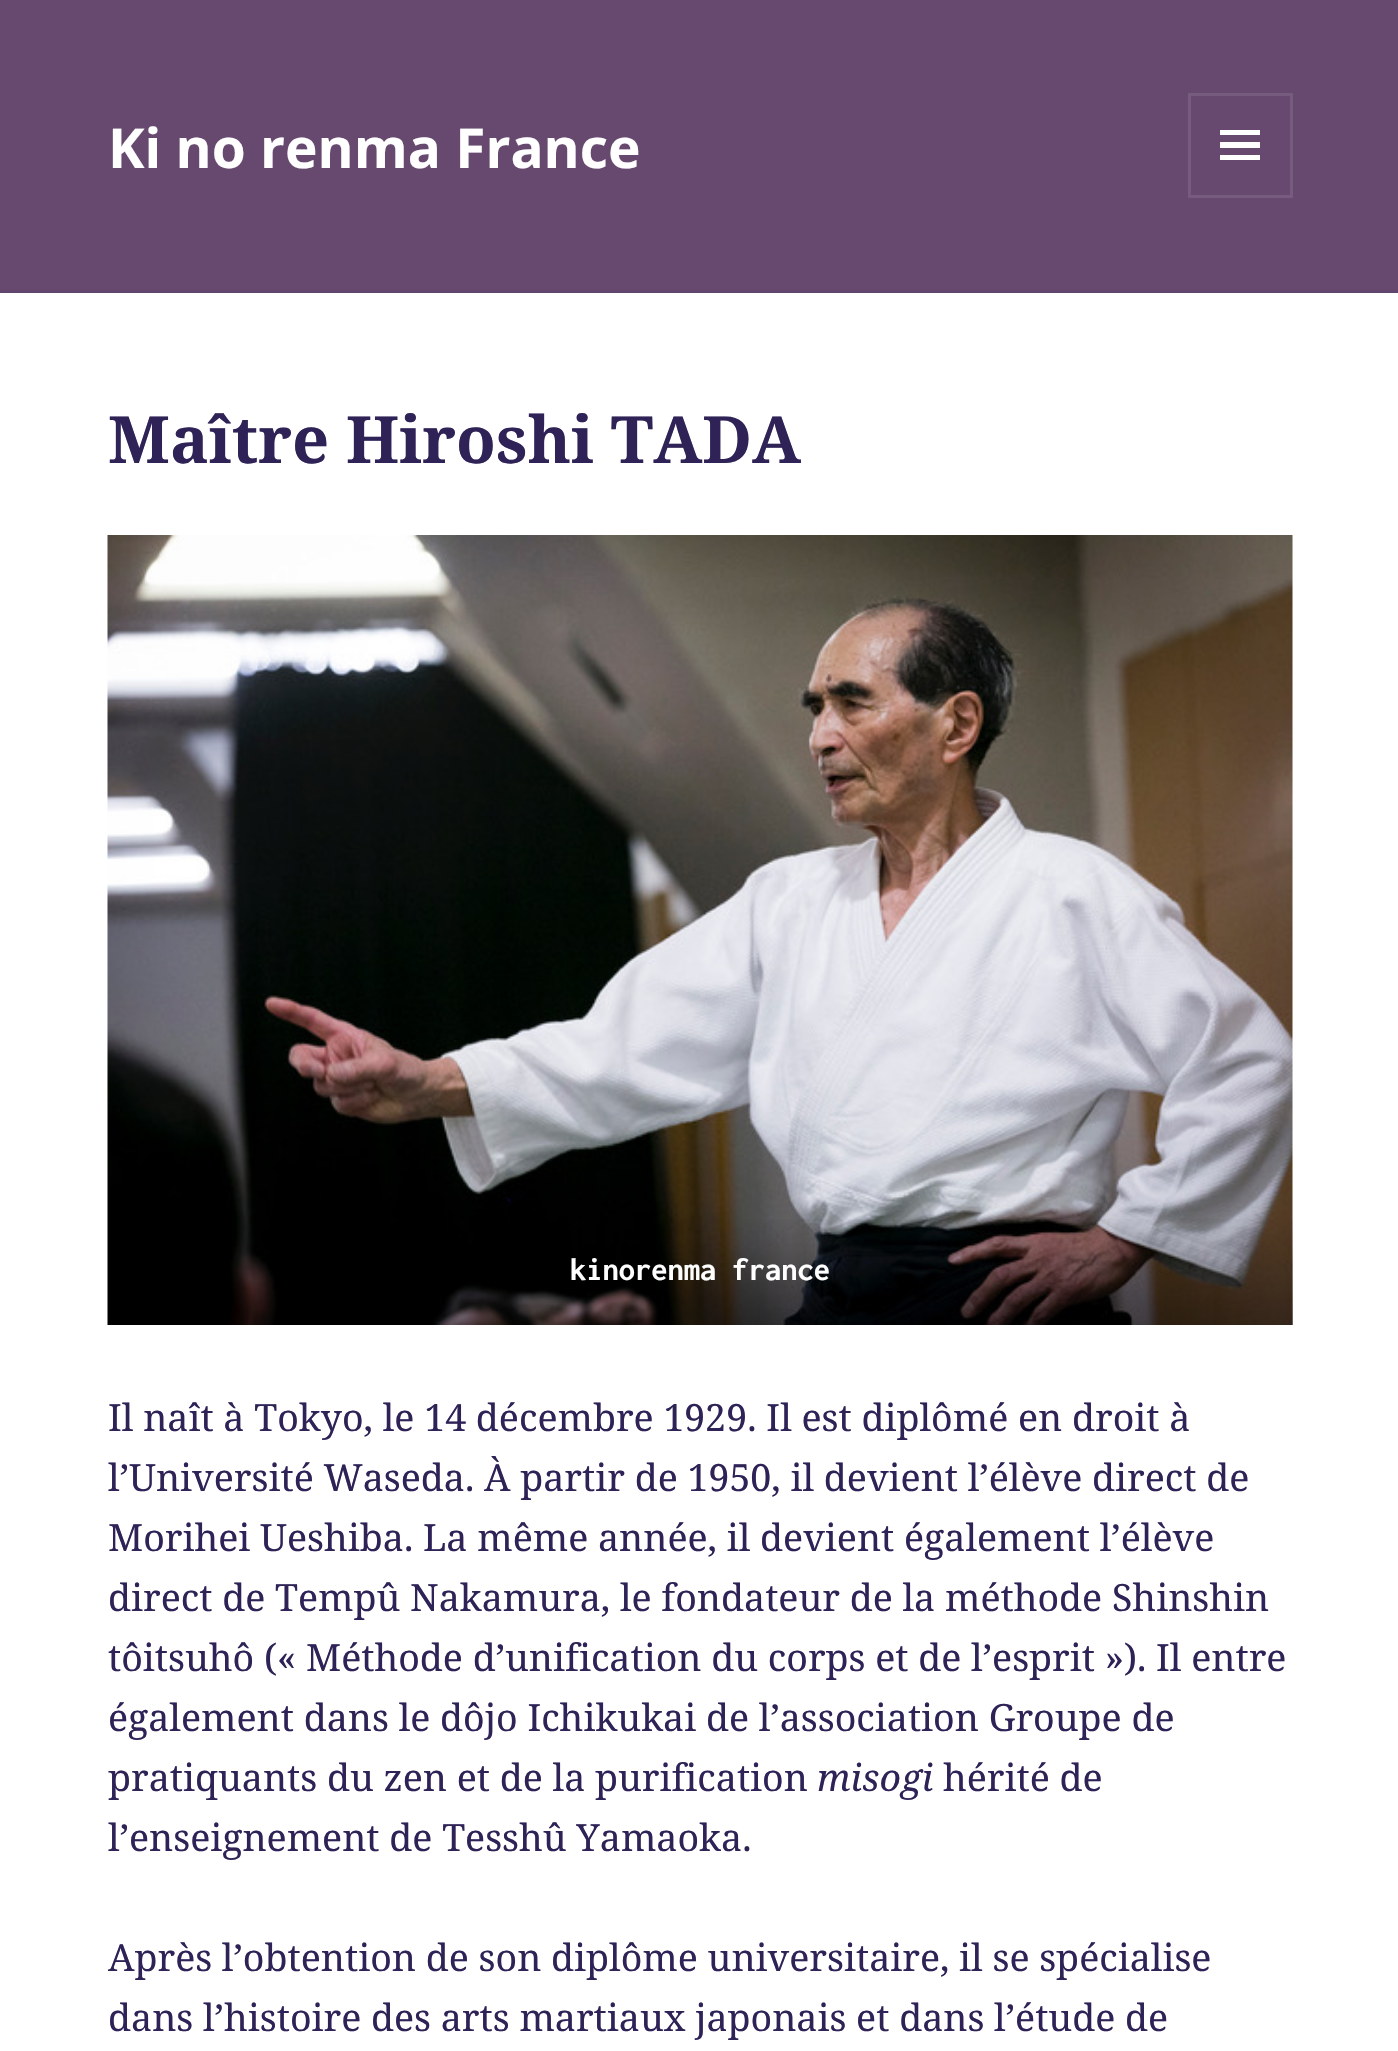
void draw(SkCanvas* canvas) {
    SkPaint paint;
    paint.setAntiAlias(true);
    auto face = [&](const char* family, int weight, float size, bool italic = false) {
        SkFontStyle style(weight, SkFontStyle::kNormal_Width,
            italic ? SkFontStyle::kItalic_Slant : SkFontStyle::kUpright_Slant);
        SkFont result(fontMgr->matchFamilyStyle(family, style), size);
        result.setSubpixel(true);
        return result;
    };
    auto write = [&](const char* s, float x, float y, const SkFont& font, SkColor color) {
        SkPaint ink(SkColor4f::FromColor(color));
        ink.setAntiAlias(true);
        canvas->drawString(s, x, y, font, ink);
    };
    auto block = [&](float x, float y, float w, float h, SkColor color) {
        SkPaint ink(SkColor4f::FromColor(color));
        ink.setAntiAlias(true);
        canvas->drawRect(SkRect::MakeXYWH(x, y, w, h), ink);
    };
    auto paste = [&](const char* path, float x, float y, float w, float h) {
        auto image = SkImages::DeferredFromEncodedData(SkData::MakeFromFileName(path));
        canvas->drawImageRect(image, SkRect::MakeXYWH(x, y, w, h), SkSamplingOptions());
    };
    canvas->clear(SkColorSetRGB(103, 73, 112));
    block(0, 290, 1398, 3, SkColorSetRGB(97, 69, 109));
    auto kFont1 = face("Noto Sans", 700, 55);
    write("Ki no renma France", 108, 168, kFont1, SK_ColorWHITE);
    paint.setStyle(SkPaint::kStroke_Style);
    paint.setStrokeWidth(3);
    paint.setColor(SkColorSetRGB(118, 91, 126));
    canvas->drawRect(SkRect::MakeXYWH(1189.5f, 94.5f, 102, 102), paint);
    paint.setStyle(SkPaint::kFill_Style);
    paint.setColor(SK_ColorWHITE);
    canvas->drawPath(SkPathBuilder().moveTo(1220, 160).lineTo(1220, 155).lineTo(1260, 155).lineTo(1260, 160).close().moveTo(1220, 130).lineTo(1260, 130).lineTo(1260, 135).lineTo(1220, 135).close().moveTo(1220, 148).lineTo(1220, 142).lineTo(1260, 142).lineTo(1260, 148).close().detach(), paint);
    block(0, 293, 1398, 1758, SK_ColorWHITE);
    auto kFont2 = face("Noto Serif", 700, 65);
    write("Maître Hiroshi TADA", 108, 463, kFont2, SkColorSetRGB(46, 34, 86));
    paste("pic1.png", 107, 535, 1186, 790);
    {
        const SkColor colors[] = {SkColorSetARGB(102, 0, 0, 0), SkColorSetARGB(0, 0, 0, 0)};
        const float stops[] = {0, 1};
        const SkPoint ends[] = {{700, 1325}, {700, 1213}};
        paint.setShader(SkGradientShader::MakeLinear(ends, colors, stops, 2, SkTileMode::kClamp));
        paint.setAlpha(255);
    }
    canvas->drawRect(SkRect::MakeXYWH(230, 1219, 1063, 106), paint);
    auto kFont3 = face("Inconsolata", 700, 32.5f);
    write("kinorenma france", 570, 1280, kFont3, SK_ColorWHITE);
    auto kFont4 = face("Noto Serif", 400, 37.5f);
    write("Il naît à Tokyo, le 14 décembre 1929. Il est diplômé en droit à", 108, 1431, kFont4, SkColorSetRGB(46, 34, 86));
    write("l’Université Waseda. À partir de 1950, il devient l’élève direct de", 108, 1491, kFont4, SkColorSetRGB(46, 34, 86));
    write("Morihei Ueshiba. La même année, il devient également l’élève", 108, 1551, kFont4, SkColorSetRGB(46, 34, 86));
    write("direct de Tempû Nakamura, le fondateur de la méthode Shinshin", 108, 1611, kFont4, SkColorSetRGB(46, 34, 86));
    write("tôitsuhô (« Méthode d’unification du corps et de l’esprit »). Il entre", 108, 1671, kFont4, SkColorSetRGB(46, 34, 86));
    write("également dans le dôjo Ichikukai de l’association Groupe de", 108, 1731, kFont4, SkColorSetRGB(46, 34, 86));
    write("pratiquants du zen et de la purification", 108, 1791, kFont4, SkColorSetRGB(46, 34, 86));
    auto kFont5 = face("Noto Serif", 400, 37.5f, true);
    write("misogi", 817, 1791, kFont5, SkColorSetRGB(46, 34, 86));
    write("hérité de", 943, 1791, kFont4, SkColorSetRGB(46, 34, 86));
    write("l’enseignement de Tesshû Yamaoka.", 108, 1851, kFont4, SkColorSetRGB(46, 34, 86));
    write("Après l’obtention de son diplôme universitaire, il se spécialise", 108, 1971, kFont4, SkColorSetRGB(46, 34, 86));
    write("dans l’histoire des arts martiaux japonais et dans l’étude de", 108, 2031, kFont4, SkColorSetRGB(46, 34, 86));
}
